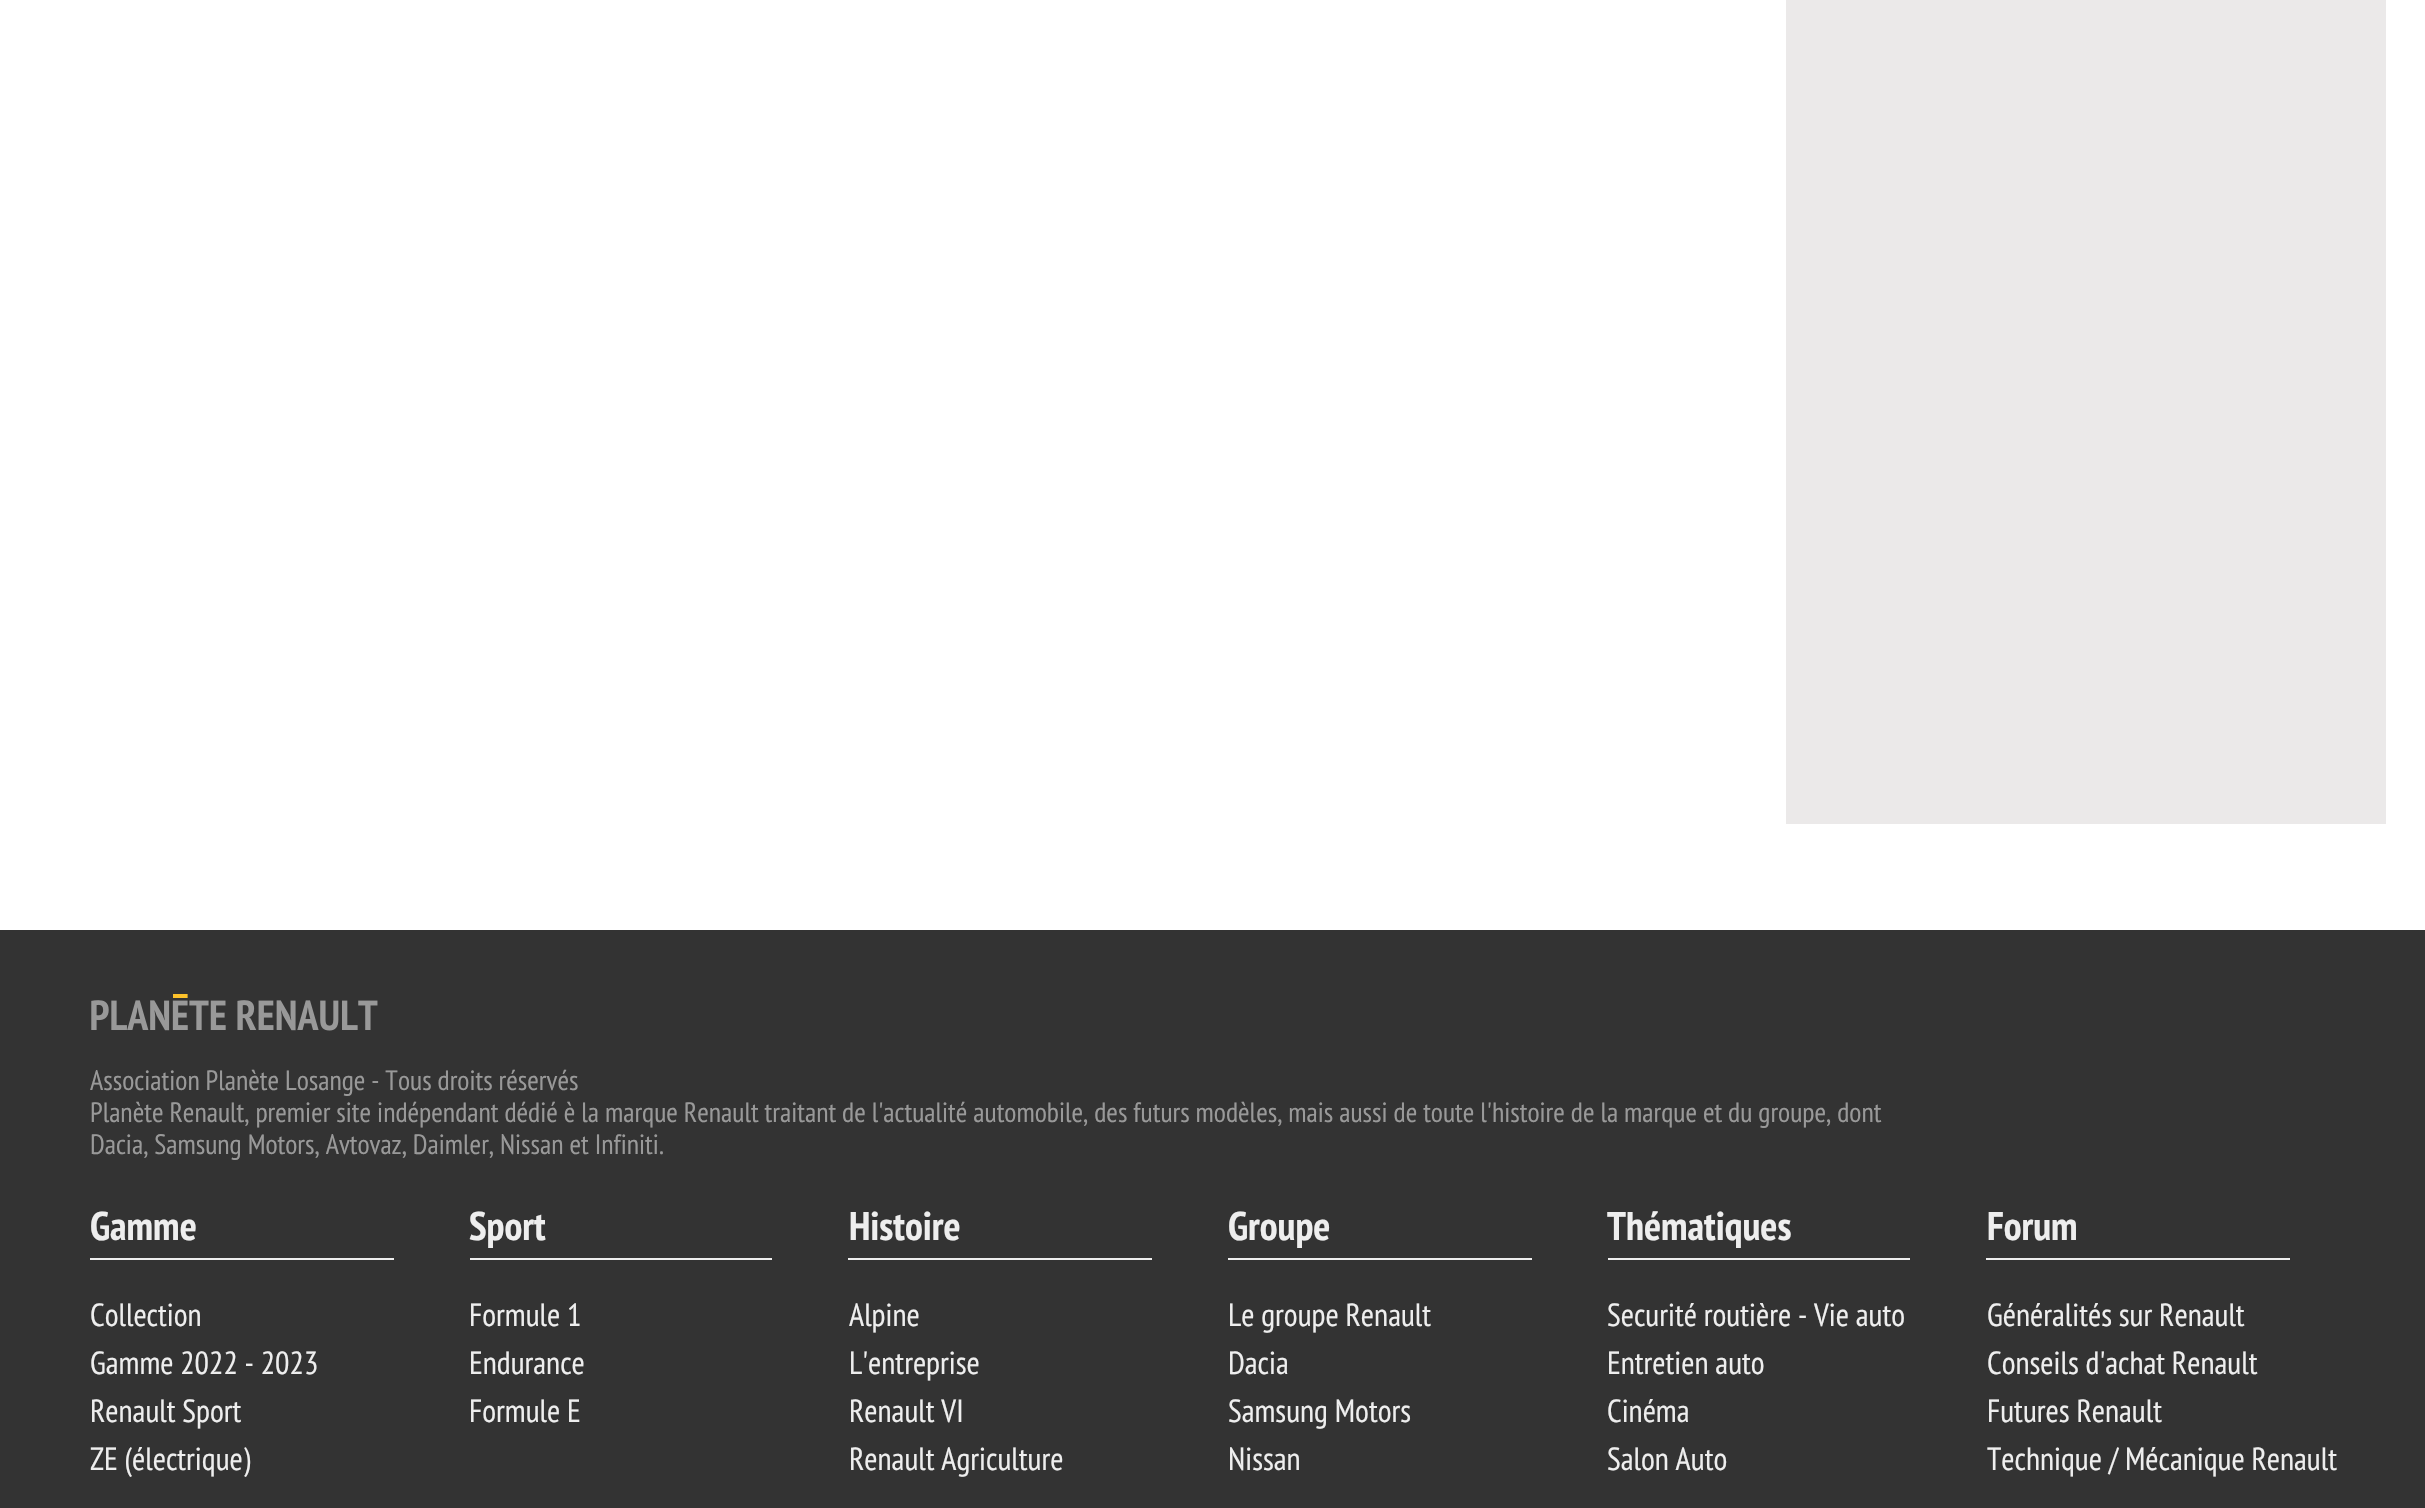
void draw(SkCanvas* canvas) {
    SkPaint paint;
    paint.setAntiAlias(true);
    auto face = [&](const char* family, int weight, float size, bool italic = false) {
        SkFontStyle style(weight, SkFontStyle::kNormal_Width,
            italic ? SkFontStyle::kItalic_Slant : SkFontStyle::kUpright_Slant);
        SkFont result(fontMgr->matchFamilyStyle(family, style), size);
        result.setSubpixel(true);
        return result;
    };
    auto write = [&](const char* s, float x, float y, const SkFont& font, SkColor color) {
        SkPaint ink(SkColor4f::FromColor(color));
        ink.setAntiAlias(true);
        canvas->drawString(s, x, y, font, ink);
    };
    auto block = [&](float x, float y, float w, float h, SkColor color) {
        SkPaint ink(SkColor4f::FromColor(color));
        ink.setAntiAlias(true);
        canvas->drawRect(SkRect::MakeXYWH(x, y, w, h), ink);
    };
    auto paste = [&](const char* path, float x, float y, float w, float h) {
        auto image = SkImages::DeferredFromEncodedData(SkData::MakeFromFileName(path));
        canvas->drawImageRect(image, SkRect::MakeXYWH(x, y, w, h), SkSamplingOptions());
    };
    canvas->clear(SK_ColorWHITE);
    block(1786, 0, 600, 824, SkColorSetRGB(235, 233, 233));
    block(0, 930, 2425, 578, SkColorSetRGB(51, 51, 51));
    paste("pic1.png", 91, 994, 287, 37);
    auto kFont1 = face("PT Sans Narrow", 400, 28);
    write("Association Planète Losange - Tous droits réservés", 90, 1090, kFont1, SkColorSetRGB(153, 153, 153));
    write("Planète Renault, premier site indépendant dédié è la marque Renault traitant de l'actualité automobile, des futurs modèles, mais aussi de toute l'histoire de la marque et du groupe, dont", 90, 1122, kFont1, SkColorSetRGB(153, 153, 153));
    write("Dacia, Samsung Motors, Avtovaz, Daimler, Nissan et Infiniti.", 90, 1154, kFont1, SkColorSetRGB(153, 153, 153));
    block(90, 1258, 304, 2, SkColorSetRGB(238, 238, 238));
    auto kFont2 = face("PT Sans Narrow", 700, 40);
    write("Gamme", 90, 1240, kFont2, SkColorSetRGB(238, 238, 238));
    auto kFont3 = face("PT Sans Narrow", 400, 32);
    write("Collection", 90, 1326, kFont3, SkColorSetRGB(238, 238, 238));
    write("Gamme 2022 - 2023", 90, 1374, kFont3, SkColorSetRGB(238, 238, 238));
    write("Renault Sport", 90, 1422, kFont3, SkColorSetRGB(238, 238, 238));
    write("ZE (électrique)", 90, 1470, kFont3, SkColorSetRGB(238, 238, 238));
    block(470, 1258, 302, 2, SkColorSetRGB(238, 238, 238));
    write("Sport", 469, 1240, kFont2, SkColorSetRGB(238, 238, 238));
    write("Formule 1", 469, 1326, kFont3, SkColorSetRGB(238, 238, 238));
    write("Endurance", 469, 1374, kFont3, SkColorSetRGB(238, 238, 238));
    write("Formule E", 469, 1422, kFont3, SkColorSetRGB(238, 238, 238));
    block(848, 1258, 304, 2, SkColorSetRGB(238, 238, 238));
    write("Histoire", 849, 1240, kFont2, SkColorSetRGB(238, 238, 238));
    write("Alpine", 849, 1326, kFont3, SkColorSetRGB(238, 238, 238));
    write("L'entreprise", 849, 1374, kFont3, SkColorSetRGB(238, 238, 238));
    write("Renault VI", 849, 1422, kFont3, SkColorSetRGB(238, 238, 238));
    write("Renault Agriculture", 849, 1470, kFont3, SkColorSetRGB(238, 238, 238));
    block(1228, 1258, 304, 2, SkColorSetRGB(238, 238, 238));
    write("Groupe", 1228, 1240, kFont2, SkColorSetRGB(238, 238, 238));
    write("Le groupe Renault", 1228, 1326, kFont3, SkColorSetRGB(238, 238, 238));
    write("Dacia", 1228, 1374, kFont3, SkColorSetRGB(238, 238, 238));
    write("Samsung Motors", 1228, 1422, kFont3, SkColorSetRGB(238, 238, 238));
    write("Nissan", 1228, 1470, kFont3, SkColorSetRGB(238, 238, 238));
    block(1608, 1258, 302, 2, SkColorSetRGB(238, 238, 238));
    write("Thématiques", 1607, 1240, kFont2, SkColorSetRGB(238, 238, 238));
    write("Securité routière - Vie auto", 1607, 1326, kFont3, SkColorSetRGB(238, 238, 238));
    write("Entretien auto", 1607, 1374, kFont3, SkColorSetRGB(238, 238, 238));
    write("Cinéma", 1607, 1422, kFont3, SkColorSetRGB(238, 238, 238));
    write("Salon Auto", 1607, 1470, kFont3, SkColorSetRGB(238, 238, 238));
    block(1986, 1258, 304, 2, SkColorSetRGB(238, 238, 238));
    write("Forum", 1987, 1240, kFont2, SkColorSetRGB(238, 238, 238));
    write("Généralités sur Renault", 1987, 1326, kFont3, SkColorSetRGB(238, 238, 238));
    write("Conseils d'achat Renault", 1987, 1374, kFont3, SkColorSetRGB(238, 238, 238));
    write("Futures Renault", 1987, 1422, kFont3, SkColorSetRGB(238, 238, 238));
    write("Technique / Mécanique Renault", 1987, 1470, kFont3, SkColorSetRGB(238, 238, 238));
}
